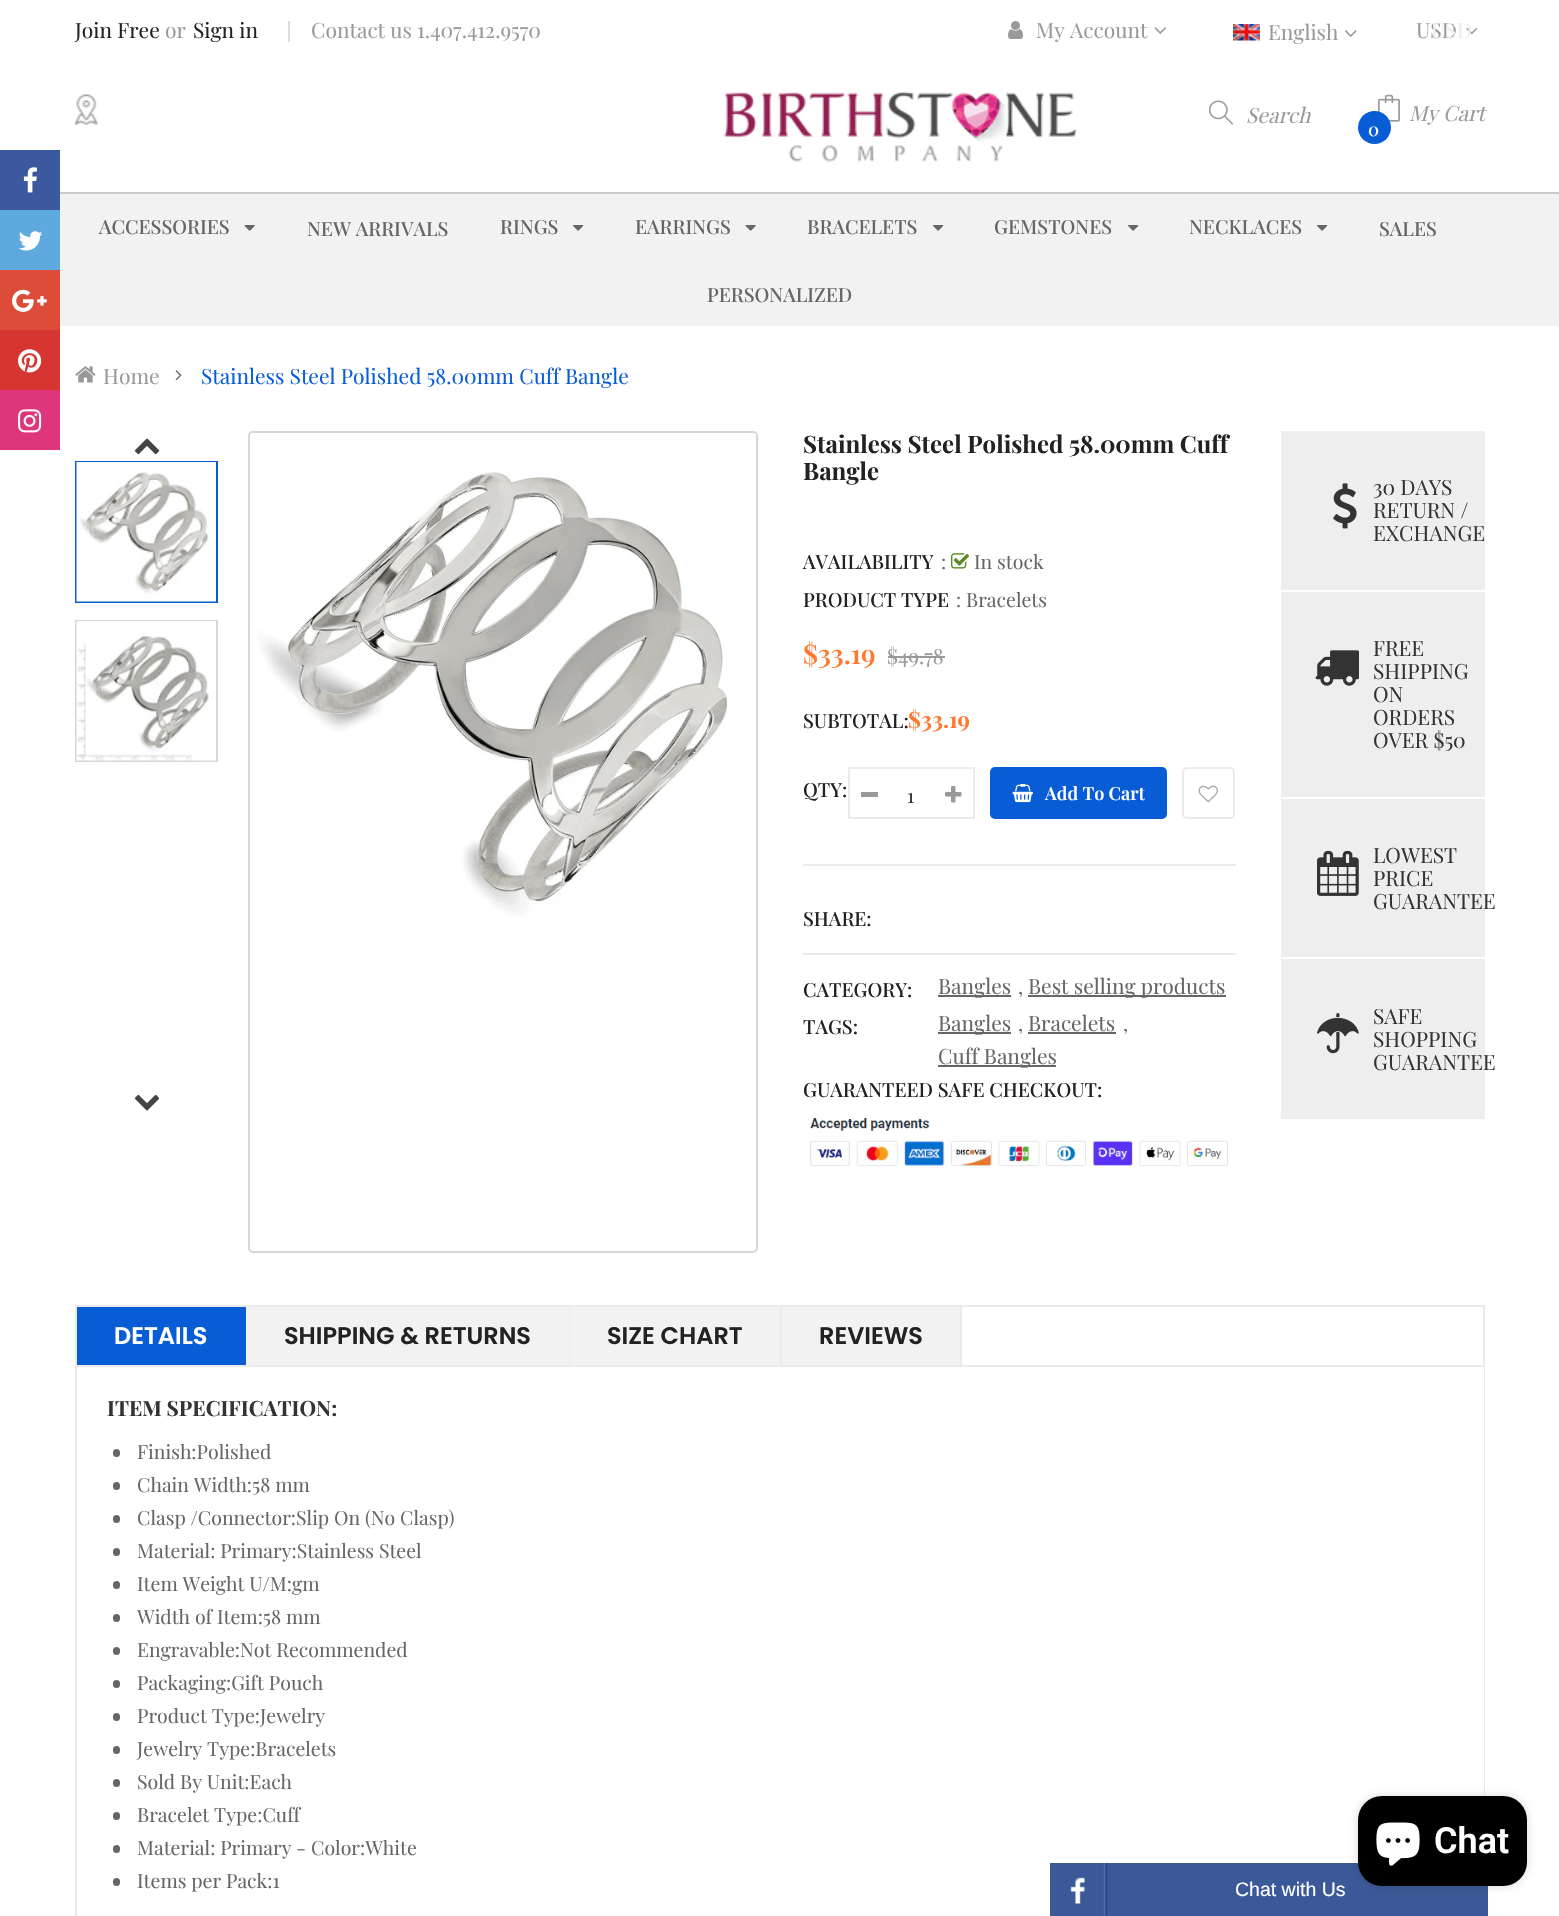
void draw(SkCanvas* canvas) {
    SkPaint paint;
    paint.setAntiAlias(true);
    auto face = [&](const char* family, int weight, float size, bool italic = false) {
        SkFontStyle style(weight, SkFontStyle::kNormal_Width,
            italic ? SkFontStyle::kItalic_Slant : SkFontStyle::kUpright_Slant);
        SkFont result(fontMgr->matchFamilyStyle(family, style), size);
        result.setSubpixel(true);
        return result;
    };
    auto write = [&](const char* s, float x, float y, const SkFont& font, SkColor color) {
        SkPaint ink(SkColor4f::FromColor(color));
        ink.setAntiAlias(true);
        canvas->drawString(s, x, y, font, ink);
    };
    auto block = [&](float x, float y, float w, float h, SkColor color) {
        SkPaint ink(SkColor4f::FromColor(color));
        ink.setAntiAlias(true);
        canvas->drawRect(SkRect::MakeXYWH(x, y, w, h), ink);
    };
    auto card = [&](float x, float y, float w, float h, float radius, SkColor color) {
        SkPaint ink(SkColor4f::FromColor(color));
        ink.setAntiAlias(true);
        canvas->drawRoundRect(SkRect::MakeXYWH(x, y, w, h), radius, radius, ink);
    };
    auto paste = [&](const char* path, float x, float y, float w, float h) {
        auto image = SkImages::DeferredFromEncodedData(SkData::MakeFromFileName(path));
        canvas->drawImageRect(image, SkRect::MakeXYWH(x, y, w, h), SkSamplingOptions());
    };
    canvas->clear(SK_ColorWHITE);
    block(0, 150, 60, 60, SkColorSetRGB(60, 89, 159));
    paste("pic1.png", 23, 167, 14, 26);
    block(0, 210, 60, 60, SkColorSetRGB(94, 169, 221));
    paste("pic2.png", 19, 231, 24, 20);
    block(0, 270, 60, 60, SkColorSetRGB(221, 75, 57));
    paste("pic3.png", 12, 289, 35, 23);
    block(0, 330, 60, 60, SkColorSetRGB(215, 53, 50));
    paste("pic4.png", 18, 349, 24, 24);
    block(0, 390, 60, 60, SkColorSetRGB(223, 53, 122));
    paste("pic5.png", 18, 409, 24, 24);
    auto kFont1 = face("Playfair Display", 400, 21);
    write("Join Free", 75, 38, kFont1, SkColorSetRGB(34, 34, 34));
    write("or", 165, 38, kFont1, SkColorSetRGB(153, 153, 153));
    write("Sign in", 193, 38, kFont1, SkColorSetRGB(34, 34, 34));
    block(288, 21, 2, 21, SkColorSetRGB(221, 221, 221));
    write("Contact us 1.407.412.9570", 311, 38, kFont1, SkColorSetRGB(153, 153, 153));
    paste("pic6.png", 1008, 21, 15, 18);
    write("My Account", 1036, 38, kFont1, SkColorSetRGB(153, 153, 153));
    paste("pic7.png", 1154, 27, 12, 7);
    paste("pic8.png", 1233, 24, 27, 17);
    write("English", 1268, 40, kFont1, SkColorSetRGB(153, 153, 153));
    paste("pic9.png", 1345, 30, 12, 7);
    write("USD", 1416, 38, kFont1, SkColorSetRGB(153, 153, 153));
    paste("pic10.png", 1466, 28, 12, 7);
    write("USD", 1431, 38, kFont1, SkColorSetRGB(238, 238, 238));
    block(60, 192, 1499, 2, SkColorSetRGB(207, 202, 202));
    paste("pic11.png", 75, 94, 23, 31);
    paste("pic12.png", 724, 91, 353, 72);
    paste("pic13.png", 1208, 100, 25, 25);
    auto kFont2 = face("Playfair Display", 400, 21, true);
    write("Search", 1246, 123, kFont2, SkColorSetRGB(153, 153, 153));
    write("My Cart", 1409, 121, kFont2, SkColorSetRGB(153, 153, 153));
    paste("pic14.png", 1378, 94, 22, 28);
    paint.setColor(SkColorSetRGB(8, 93, 214));
    canvas->drawCircle(1374.5f, 127.5f, 16.5f, paint);
    auto kFont3 = face("Playfair Display", 500, 18);
    write("0", 1368, 136, kFont3, SK_ColorWHITE);
    block(60, 194, 1499, 132, SkColorSetRGB(242, 242, 242));
    auto kFont4 = face("Playfair Display", 500, 19.5f);
    write("ACCESSORIES", 99, 234, kFont4, SkColorSetRGB(102, 102, 102));
    paste("pic15.png", 244, 225, 11, 6);
    write("NEW ARRIVALS", 307, 236, kFont4, SkColorSetRGB(102, 102, 102));
    write("RINGS", 500, 234, kFont4, SkColorSetRGB(102, 102, 102));
    paste("pic16.png", 573, 225, 11, 6);
    write("EARRINGS", 635, 234, kFont4, SkColorSetRGB(102, 102, 102));
    paste("pic15.png", 745, 225, 11, 6);
    write("BRACELETS", 807, 234, kFont4, SkColorSetRGB(102, 102, 102));
    paste("pic16.png", 933, 225, 11, 6);
    write("GEMSTONES", 994, 234, kFont4, SkColorSetRGB(102, 102, 102));
    paste("pic16.png", 1128, 225, 11, 6);
    write("NECKLACES", 1189, 234, kFont4, SkColorSetRGB(102, 102, 102));
    paste("pic16.png", 1317, 225, 11, 6);
    write("SALES", 1379, 236, kFont4, SkColorSetRGB(102, 102, 102));
    write("PERSONALIZED", 707, 302, kFont4, SkColorSetRGB(102, 102, 102));
    paste("pic17.png", 75, 366, 21, 17);
    write("Home", 103, 384, kFont1, SkColorSetRGB(153, 153, 153));
    paste("pic18.png", 175, 370, 7, 11);
    write("Stainless Steel Polished 58.00mm Cuff Bangle", 201, 384, kFont1, SkColorSetRGB(8, 93, 214));
    paste("pic19.png", 134, 438, 26, 17);
    paint.setStyle(SkPaint::kStroke_Style);
    paint.setStrokeWidth(2);
    canvas->drawRect(SkRect::MakeXYWH(76, 462, 141, 140), paint);
    paste("pic20.png", 76, 462, 140, 140);
    paint.setColor(SkColorSetRGB(215, 215, 215));
    canvas->drawRect(SkRect::MakeXYWH(76, 621, 141, 140), paint);
    paste("pic21.png", 76, 621, 140, 140);
    paste("pic22.png", 134, 1094, 26, 17);
    canvas->drawRoundRect(SkRect::MakeXYWH(249, 432, 508, 820), 4, 4, paint);
    paste("pic23.png", 250, 433, 506, 484);
    auto kFont5 = face("Playfair Display", 700, 24);
    write("Stainless Steel Polished 58.00mm Cuff", 803, 453, kFont5, SkColorSetRGB(34, 34, 34));
    write("Bangle", 803, 480, kFont5, SkColorSetRGB(34, 34, 34));
    write("AVAILABILITY", 803, 569, kFont4, SkColorSetRGB(34, 34, 34));
    auto kFont6 = face("Playfair Display", 400, 19.5f);
    write(":", 941, 569, kFont6, SkColorSetRGB(102, 102, 102));
    paste("pic24.png", 951, 553, 18, 16);
    write("In stock", 974, 569, kFont6, SkColorSetRGB(102, 102, 102));
    write("PRODUCT TYPE", 803, 607, kFont4, SkColorSetRGB(34, 34, 34));
    write(": Bracelets", 956, 607, kFont6, SkColorSetRGB(102, 102, 102));
    auto kFont7 = face("Playfair Display", 600, 27);
    write("$33.19", 803, 664, kFont7, SkColorSetRGB(255, 120, 46));
    write("$49.78", 887, 664, kFont1, SkColorSetRGB(153, 153, 153));
    block(888, 656, 57, 2, SkColorSetRGB(153, 153, 153));
    write("SUBTOTAL:", 803, 728, kFont4, SkColorSetRGB(34, 34, 34));
    auto kFont8 = face("Playfair Display", 700, 22.5f);
    write("$33.19", 908, 728, kFont8, SkColorSetRGB(255, 120, 46));
    write("QTY:", 803, 797, kFont4, SkColorSetRGB(34, 34, 34));
    paint.setColor(SkColorSetRGB(235, 235, 235));
    canvas->drawRect(SkRect::MakeXYWH(849, 768, 125, 50), paint);
    block(861, 792, 17, 5, SkColorSetRGB(153, 153, 153));
    write("1", 907, 803, kFont6, SkColorSetRGB(51, 51, 51));
    paste("pic25.png", 945, 786, 17, 17);
    card(990, 767, 177, 52, 5, SkColorSetRGB(8, 93, 214));
    paste("pic26.png", 1012, 784, 21, 19);
    auto kFont9 = face("Playfair Display", 600, 18);
    write("Add To Cart", 1045, 800, kFont9, SK_ColorWHITE);
    canvas->drawRoundRect(SkRect::MakeXYWH(1183, 768, 51, 50), 4, 4, paint);
    paste("pic27.png", 1198, 785, 20, 18);
    block(803, 864, 433, 2, SkColorSetRGB(235, 235, 235));
    block(803, 953, 433, 2, SkColorSetRGB(235, 235, 235));
    write("SHARE:", 803, 926, kFont4, SkColorSetRGB(34, 34, 34));
    write("CATEGORY:", 803, 997, kFont4, SkColorSetRGB(34, 34, 34));
    block(938, 995, 73, 2, SkColorSetRGB(102, 102, 102));
    write("Bangles", 938, 994, kFont1, SkColorSetRGB(102, 102, 102));
    write(",", 1018, 994, kFont6, SkColorSetRGB(102, 102, 102));
    block(1028, 995, 198, 2, SkColorSetRGB(102, 102, 102));
    write("Best selling products", 1028, 994, kFont1, SkColorSetRGB(102, 102, 102));
    write("TAGS:", 803, 1034, kFont4, SkColorSetRGB(34, 34, 34));
    block(938, 1032, 73, 2, SkColorSetRGB(102, 102, 102));
    write("Bangles", 938, 1031, kFont1, SkColorSetRGB(102, 102, 102));
    write(",", 1018, 1031, kFont6, SkColorSetRGB(102, 102, 102));
    write("Bracelets", 1028, 1031, kFont1, SkColorSetRGB(102, 102, 102));
    block(1028, 1032, 88, 2, SkColorSetRGB(102, 102, 102));
    write(",", 1123, 1031, kFont6, SkColorSetRGB(102, 102, 102));
    block(938, 1065, 118, 2, SkColorSetRGB(102, 102, 102));
    write("Cuff Bangles", 938, 1064, kFont1, SkColorSetRGB(102, 102, 102));
    write("GUARANTEED SAFE CHECKOUT:", 803, 1097, kFont4, SkColorSetRGB(34, 34, 34));
    paste("pic28.png", 808, 1113, 421, 55);
    block(1281, 431, 204, 688, SkColorSetRGB(238, 238, 238));
    block(1281, 590, 204, 2, SK_ColorWHITE);
    paste("pic29.png", 1333, 483, 24, 46);
    write("30 DAYS", 1373, 495, kFont1, SkColorSetRGB(51, 51, 51));
    write("RETURN /", 1373, 518, kFont1, SkColorSetRGB(51, 51, 51));
    write("EXCHANGE", 1373, 541, kFont1, SkColorSetRGB(51, 51, 51));
    block(1281, 797, 204, 2, SK_ColorWHITE);
    paste("pic30.png", 1315, 650, 44, 36);
    write("FREE", 1373, 656, kFont1, SkColorSetRGB(51, 51, 51));
    write("SHIPPING", 1373, 679, kFont1, SkColorSetRGB(51, 51, 51));
    write("ON", 1373, 702, kFont1, SkColorSetRGB(51, 51, 51));
    write("ORDERS", 1373, 725, kFont1, SkColorSetRGB(51, 51, 51));
    write("OVER $50", 1373, 748, kFont1, SkColorSetRGB(51, 51, 51));
    block(1281, 957, 204, 2, SK_ColorWHITE);
    paste("pic31.png", 1317, 850, 42, 46);
    write("LOWEST", 1373, 863, kFont1, SkColorSetRGB(51, 51, 51));
    write("PRICE", 1373, 886, kFont1, SkColorSetRGB(51, 51, 51));
    write("GUARANTEE", 1373, 909, kFont1, SkColorSetRGB(51, 51, 51));
    paste("pic32.png", 1317, 1013, 42, 41);
    write("SAFE", 1373, 1024, kFont1, SkColorSetRGB(51, 51, 51));
    write("SHOPPING", 1373, 1047, kFont1, SkColorSetRGB(51, 51, 51));
    write("GUARANTEE", 1373, 1070, kFont1, SkColorSetRGB(51, 51, 51));
    canvas->drawRect(SkRect::MakeXYWH(76, 1306, 1408, 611), paint);
    block(77, 1365, 1407, 2, SkColorSetRGB(235, 235, 235));
    block(77, 1307, 169, 58, SkColorSetRGB(8, 93, 214));
    auto kFont10 = face("Poppins", 600, 24);
    write("DETAILS", 114, 1344, kFont10, SK_ColorWHITE);
    block(246, 1307, 323, 58, SkColorSetRGB(242, 242, 242));
    block(569, 1307, 1, 58, SkColorSetRGB(235, 235, 235));
    write("SHIPPING & RETURNS", 284, 1344, kFont10, SkColorSetRGB(34, 34, 34));
    block(570, 1307, 210, 58, SkColorSetRGB(242, 242, 242));
    block(780, 1307, 2, 58, SkColorSetRGB(235, 235, 235));
    write("SIZE CHART", 607, 1344, kFont10, SkColorSetRGB(34, 34, 34));
    block(782, 1307, 178, 58, SkColorSetRGB(242, 242, 242));
    block(960, 1307, 2, 58, SkColorSetRGB(235, 235, 235));
    write("REVIEWS", 819, 1344, kFont10, SkColorSetRGB(34, 34, 34));
    block(1483, 1367, 1, 549, SK_ColorWHITE);
    auto kFont11 = face("Playfair Display", 700, 21);
    write("ITEM SPECIFICATION:", 107, 1416, kFont11, SkColorSetRGB(51, 51, 51));
    card(113, 1449, 7, 8, 3.5f, SkColorSetRGB(102, 102, 102));
    write("Finish:Polished", 137, 1459, kFont6, SkColorSetRGB(102, 102, 102));
    card(113, 1482, 7, 8, 3.5f, SkColorSetRGB(102, 102, 102));
    write("Chain Width:58 mm", 137, 1492, kFont6, SkColorSetRGB(102, 102, 102));
    card(113, 1515, 7, 8, 3.5f, SkColorSetRGB(102, 102, 102));
    write("Clasp /Connector:Slip On (No Clasp)", 137, 1525, kFont6, SkColorSetRGB(102, 102, 102));
    card(113, 1548, 7, 8, 3.5f, SkColorSetRGB(102, 102, 102));
    write("Material: Primary:Stainless Steel", 137, 1558, kFont6, SkColorSetRGB(102, 102, 102));
    card(113, 1581, 7, 8, 3.5f, SkColorSetRGB(102, 102, 102));
    write("Item Weight U/M:gm", 137, 1591, kFont6, SkColorSetRGB(102, 102, 102));
    card(113, 1614, 7, 8, 3.5f, SkColorSetRGB(102, 102, 102));
    write("Width of Item:58 mm", 137, 1624, kFont6, SkColorSetRGB(102, 102, 102));
    card(113, 1647, 7, 8, 3.5f, SkColorSetRGB(102, 102, 102));
    write("Engravable:Not Recommended", 137, 1657, kFont6, SkColorSetRGB(102, 102, 102));
    card(113, 1680, 7, 8, 3.5f, SkColorSetRGB(102, 102, 102));
    write("Packaging:Gift Pouch", 137, 1690, kFont6, SkColorSetRGB(102, 102, 102));
    card(113, 1713, 7, 8, 3.5f, SkColorSetRGB(102, 102, 102));
    write("Product Type:Jewelry", 137, 1723, kFont6, SkColorSetRGB(102, 102, 102));
    card(113, 1746, 7, 8, 3.5f, SkColorSetRGB(102, 102, 102));
    write("Jewelry Type:Bracelets", 137, 1756, kFont6, SkColorSetRGB(102, 102, 102));
    card(113, 1779, 7, 8, 3.5f, SkColorSetRGB(102, 102, 102));
    write("Sold By Unit:Each", 137, 1789, kFont6, SkColorSetRGB(102, 102, 102));
    card(113, 1812, 7, 8, 3.5f, SkColorSetRGB(102, 102, 102));
    write("Bracelet Type:Cuff", 137, 1822, kFont6, SkColorSetRGB(102, 102, 102));
    card(113, 1845, 7, 8, 3.5f, SkColorSetRGB(102, 102, 102));
    write("Material: Primary - Color:White", 137, 1855, kFont6, SkColorSetRGB(102, 102, 102));
    card(113, 1878, 7, 8, 3.5f, SkColorSetRGB(102, 102, 102));
    write("Items per Pack:1", 137, 1888, kFont6, SkColorSetRGB(102, 102, 102));
    block(1050, 1863, 438, 53, SkColorSetRGB(59, 89, 152));
    paste("pic33.png", 1070, 1863, 38, 53);
    auto kFont12 = face("Liberation Sans", 400, 19.5f);
    write("Chat with Us", 1235, 1896, kFont12, SK_ColorWHITE);
    paint.setStyle(SkPaint::kFill_Style);
    paint.setColor(SkColorSetARGB(38, 0, 0, 0));
    paint.setMaskFilter(SkMaskFilter::MakeBlur(kNormal_SkBlurStyle, 4));
    canvas->drawRoundRect(SkRect::MakeXYWH(1358, 1796, 169, 90), 24, 24, paint);
    paint.setMaskFilter(nullptr);
    card(1358, 1796, 169, 90, 24, SK_ColorBLACK);
    paste("pic34.png", 1376, 1822, 44, 44);
    auto kFont13 = face("Roboto", 600, 36);
    write("Chat", 1434, 1853, kFont13, SK_ColorWHITE);
}
